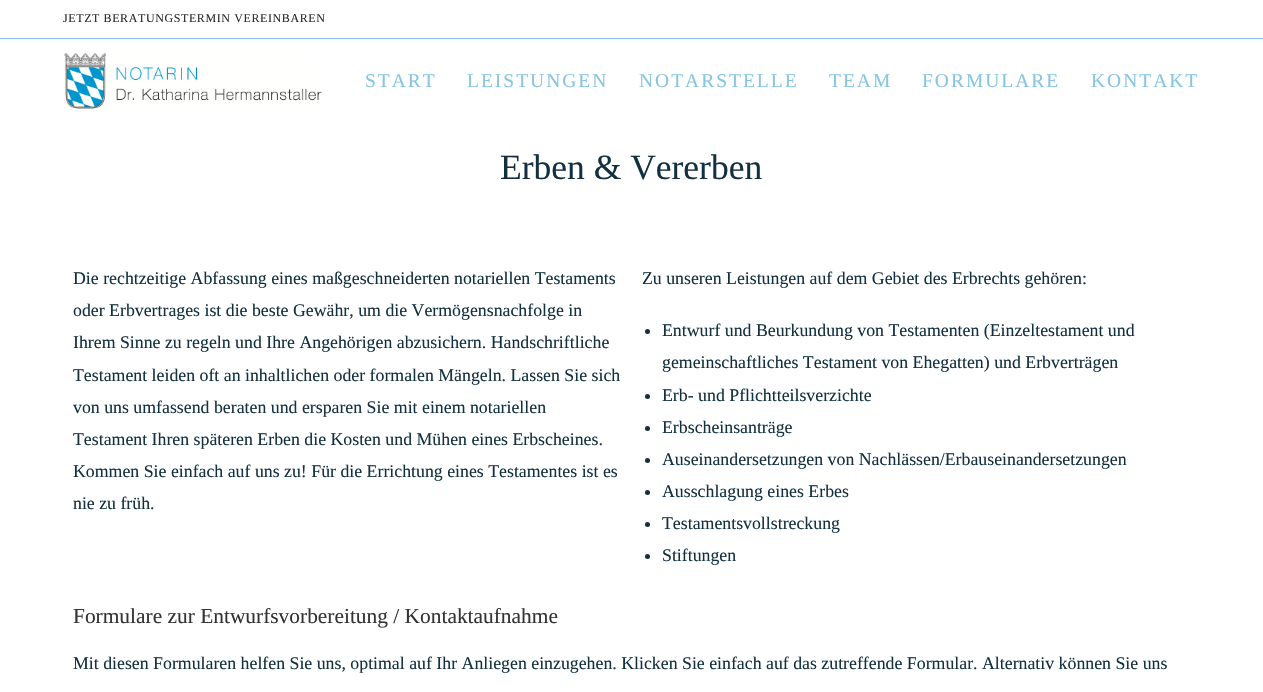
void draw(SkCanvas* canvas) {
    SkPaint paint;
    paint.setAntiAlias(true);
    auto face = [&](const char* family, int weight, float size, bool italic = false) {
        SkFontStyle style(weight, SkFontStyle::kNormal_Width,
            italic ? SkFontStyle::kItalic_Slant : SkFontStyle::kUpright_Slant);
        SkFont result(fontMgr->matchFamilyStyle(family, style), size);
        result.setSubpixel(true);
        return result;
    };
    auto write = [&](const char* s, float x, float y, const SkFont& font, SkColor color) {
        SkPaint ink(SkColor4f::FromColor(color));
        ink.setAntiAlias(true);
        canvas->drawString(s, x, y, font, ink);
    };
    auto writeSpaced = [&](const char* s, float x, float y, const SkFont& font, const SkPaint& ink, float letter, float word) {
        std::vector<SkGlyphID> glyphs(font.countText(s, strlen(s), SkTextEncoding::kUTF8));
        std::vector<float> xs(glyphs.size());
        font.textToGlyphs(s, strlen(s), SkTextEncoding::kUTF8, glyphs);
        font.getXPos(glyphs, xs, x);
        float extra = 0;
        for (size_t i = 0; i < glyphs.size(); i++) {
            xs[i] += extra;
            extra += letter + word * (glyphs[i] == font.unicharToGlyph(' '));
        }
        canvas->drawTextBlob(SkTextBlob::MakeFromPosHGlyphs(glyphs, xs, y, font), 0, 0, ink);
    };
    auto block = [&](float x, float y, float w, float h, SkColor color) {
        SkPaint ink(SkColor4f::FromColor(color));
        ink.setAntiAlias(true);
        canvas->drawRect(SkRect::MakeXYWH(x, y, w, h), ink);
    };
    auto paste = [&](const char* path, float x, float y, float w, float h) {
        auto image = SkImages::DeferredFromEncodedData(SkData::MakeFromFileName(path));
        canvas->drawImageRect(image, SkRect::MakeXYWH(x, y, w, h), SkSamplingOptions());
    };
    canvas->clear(SK_ColorWHITE);
    block(0, 38, 1263, 1, SkColorSetRGB(135, 197, 227));
    auto kFont1 = face("Liberation Serif", 400, 12);
    paint.setColor(SkColorSetRGB(44, 44, 44));
    writeSpaced("JETZT BERATUNGSTERMIN VEREINBAREN", 63, 22, kFont1, paint, 0.6f, 0);
    paste("pic1.png", 64, 53, 258, 56);
    auto kFont2 = face("Liberation Serif", 400, 19.5f);
    paint.setColor(SkColorSetRGB(135, 197, 227));
    writeSpaced("START", 365, 87, kFont2, paint, 2, 0);
    writeSpaced("LEISTUNGEN", 467, 87, kFont2, paint, 2, 0);
    writeSpaced("NOTARSTELLE", 639, 87, kFont2, paint, 2, 0);
    writeSpaced("TEAM", 829, 87, kFont2, paint, 2, 0);
    writeSpaced("FORMULARE", 922, 87, kFont2, paint, 2, 0);
    writeSpaced("KONTAKT", 1091, 87, kFont2, paint, 2, 0);
    auto kFont3 = face("Liberation Serif", 400, 35.5f);
    write("Erben & Vererben", 500, 179, kFont3, SkColorSetRGB(18, 48, 64));
    auto kFont4 = face("Liberation Serif", 400, 17.8f);
    write("Die rechtzeitige Abfassung eines maßgeschneiderten notariellen Testaments", 73, 284, kFont4, SkColorSetRGB(18, 48, 64));
    write("oder Erbvertrages ist die beste Gewähr, um die Vermögensnachfolge in", 73, 316, kFont4, SkColorSetRGB(18, 48, 64));
    write("Ihrem Sinne zu regeln und Ihre Angehörigen abzusichern. Handschriftliche", 73, 348, kFont4, SkColorSetRGB(18, 48, 64));
    write("Testament leiden oft an inhaltlichen oder formalen Mängeln. Lassen Sie sich", 73, 381, kFont4, SkColorSetRGB(18, 48, 64));
    write("von uns umfassend beraten und ersparen Sie mit einem notariellen", 73, 413, kFont4, SkColorSetRGB(18, 48, 64));
    write("Testament Ihren späteren Erben die Kosten und Mühen eines Erbscheines.", 73, 445, kFont4, SkColorSetRGB(18, 48, 64));
    write("Kommen Sie einfach auf uns zu! Für die Errichtung eines Testamentes ist es", 73, 477, kFont4, SkColorSetRGB(18, 48, 64));
    write("nie zu früh.", 73, 509, kFont4, SkColorSetRGB(18, 48, 64));
    write("Zu unseren Leistungen auf dem Gebiet des Erbrechts gehören:", 642, 284, kFont4, SkColorSetRGB(18, 48, 64));
    paint.setColor(SkColorSetRGB(18, 48, 64));
    canvas->drawCircle(647.5f, 331.5f, 2.5f, paint);
    write("Entwurf und Beurkundung von Testamenten (Einzeltestament und", 662, 336, kFont4, SkColorSetRGB(18, 48, 64));
    write("gemeinschaftliches Testament von Ehegatten) und Erbverträgen", 662, 368, kFont4, SkColorSetRGB(18, 48, 64));
    canvas->drawCircle(647.5f, 396.5f, 2.5f, paint);
    write("Erb- und Pflichtteilsverzichte", 662, 401, kFont4, SkColorSetRGB(18, 48, 64));
    canvas->drawCircle(647.5f, 428.5f, 2.5f, paint);
    write("Erbscheinsanträge", 662, 433, kFont4, SkColorSetRGB(18, 48, 64));
    canvas->drawCircle(647.5f, 460.5f, 2.5f, paint);
    write("Auseinandersetzungen von Nachlässen/Erbauseinandersetzungen", 662, 465, kFont4, SkColorSetRGB(18, 48, 64));
    canvas->drawCircle(647.5f, 492.5f, 2.5f, paint);
    write("Ausschlagung eines Erbes", 662, 497, kFont4, SkColorSetRGB(18, 48, 64));
    canvas->drawCircle(647.5f, 524.5f, 2.5f, paint);
    write("Testamentsvollstreckung", 662, 529, kFont4, SkColorSetRGB(18, 48, 64));
    canvas->drawCircle(647.5f, 556.5f, 2.5f, paint);
    write("Stiftungen", 662, 561, kFont4, SkColorSetRGB(18, 48, 64));
    auto kFont5 = face("Liberation Serif", 400, 21.4f);
    write("Formulare zur Entwurfsvorbereitung / Kontaktaufnahme", 73, 623, kFont5, SkColorSetRGB(51, 51, 51));
    write("Mit diesen Formularen helfen Sie uns, optimal auf Ihr Anliegen einzugehen. Klicken Sie einfach auf das zutreffende Formular. Alternativ können Sie uns", 73, 669, kFont4, SkColorSetRGB(18, 48, 64));
}
